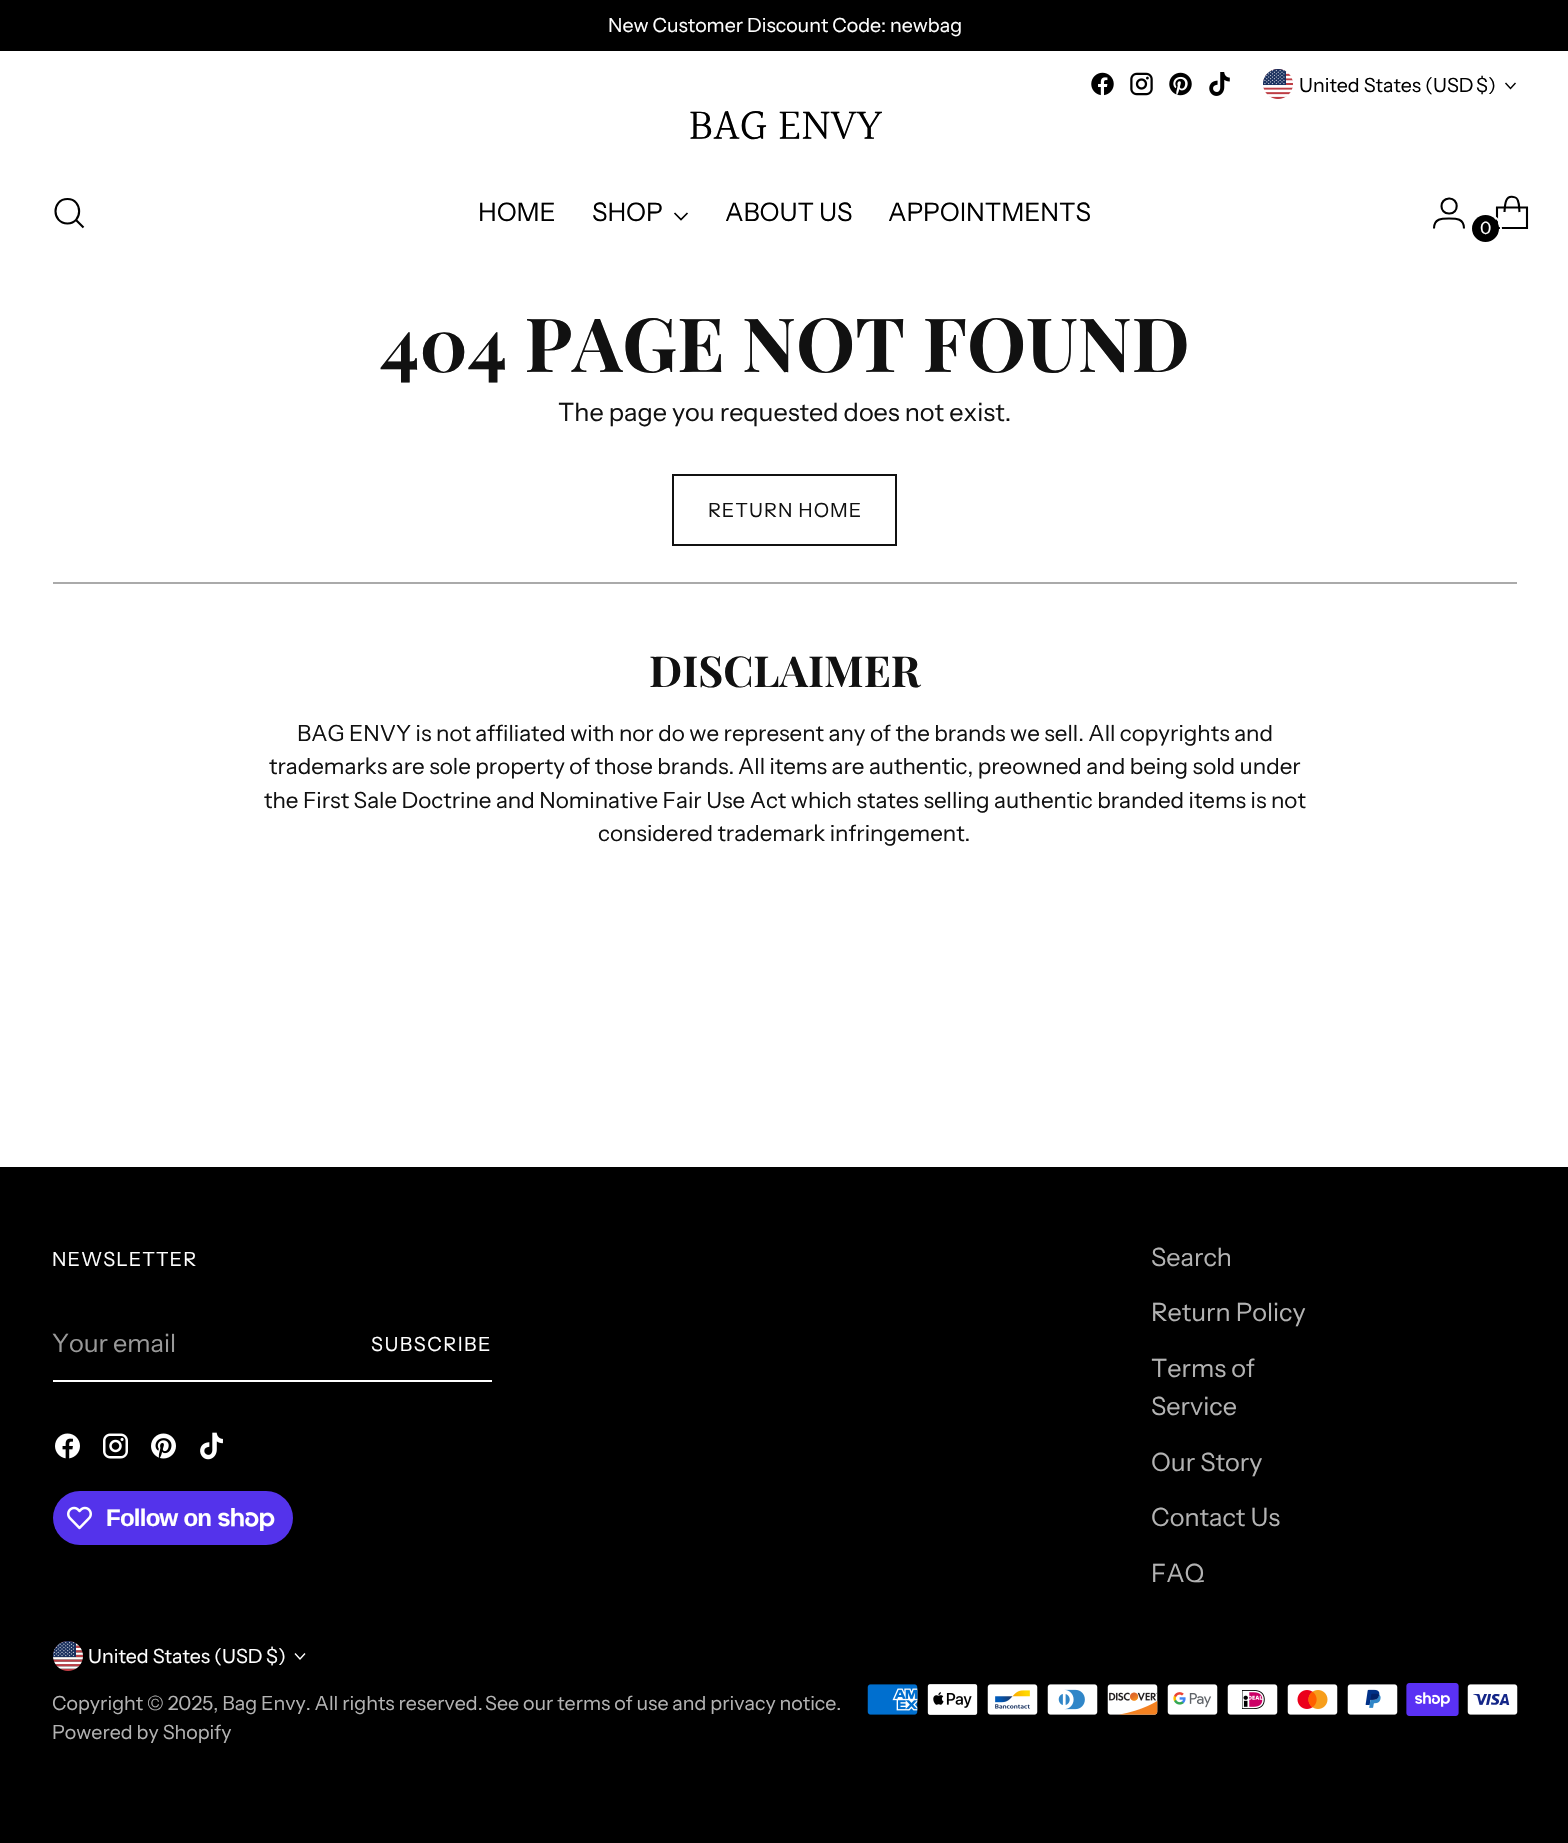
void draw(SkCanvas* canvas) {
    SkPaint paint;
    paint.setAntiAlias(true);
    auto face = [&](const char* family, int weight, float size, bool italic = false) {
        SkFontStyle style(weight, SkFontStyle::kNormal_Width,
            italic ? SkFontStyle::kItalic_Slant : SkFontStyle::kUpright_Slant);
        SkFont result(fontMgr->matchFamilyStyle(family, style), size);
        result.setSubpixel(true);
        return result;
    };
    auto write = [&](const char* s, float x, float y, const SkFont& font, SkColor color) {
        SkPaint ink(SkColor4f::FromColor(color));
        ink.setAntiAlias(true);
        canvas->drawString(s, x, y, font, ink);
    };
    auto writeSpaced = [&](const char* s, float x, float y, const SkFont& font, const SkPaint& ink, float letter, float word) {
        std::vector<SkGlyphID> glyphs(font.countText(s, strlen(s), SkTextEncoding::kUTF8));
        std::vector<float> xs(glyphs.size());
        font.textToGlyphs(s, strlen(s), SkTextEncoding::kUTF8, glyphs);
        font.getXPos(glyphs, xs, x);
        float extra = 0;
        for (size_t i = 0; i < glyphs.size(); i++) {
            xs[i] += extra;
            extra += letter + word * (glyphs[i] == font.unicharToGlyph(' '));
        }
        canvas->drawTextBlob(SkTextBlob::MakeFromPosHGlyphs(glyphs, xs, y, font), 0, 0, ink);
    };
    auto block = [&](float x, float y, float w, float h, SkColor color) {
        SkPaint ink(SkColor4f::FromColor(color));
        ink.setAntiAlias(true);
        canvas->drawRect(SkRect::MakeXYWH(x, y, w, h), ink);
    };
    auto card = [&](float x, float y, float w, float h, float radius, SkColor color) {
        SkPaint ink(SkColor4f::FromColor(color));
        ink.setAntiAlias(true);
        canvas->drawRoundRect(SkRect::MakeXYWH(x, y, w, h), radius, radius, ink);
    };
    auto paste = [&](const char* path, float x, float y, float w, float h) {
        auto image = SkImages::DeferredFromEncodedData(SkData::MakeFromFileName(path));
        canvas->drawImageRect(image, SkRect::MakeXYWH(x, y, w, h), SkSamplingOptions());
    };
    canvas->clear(SK_ColorWHITE);
    block(0, 0, 1568, 51, SK_ColorBLACK);
    auto kFont1 = face("Instrument Sans", 400, 19.6f);
    write("New Customer Discount Code: newbag", 608, 32, kFont1, SK_ColorWHITE);
    paste("pic1.png", 1091, 72, 23, 24);
    paste("pic2.png", 1130, 72, 23, 24);
    paste("pic3.png", 1169, 72, 23, 24);
    paste("pic4.png", 1209, 72, 21, 24);
    paste("pic5.png", 1263, 69, 30, 30);
    write("United States (USD", 1299, 92, kFont1, SK_ColorBLACK);
    write("$)", 1476, 92, kFont1, SK_ColorBLACK);
    paint.setStyle(SkPaint::kStroke_Style);
    paint.setStrokeWidth(1.4f);
    paint.setColor(SK_ColorBLACK);
    canvas->drawPath(SkPathBuilder().moveTo(1505.5f, 83).lineTo(1510.5f, 88.5f).lineTo(1515.5f, 83).detach(), paint);
    auto kFont2 = face("Halant", 400, 44.5f);
    write("BAG ENVY", 689, 141, kFont2, SK_ColorBLACK);
    paint.setStrokeWidth(2.1f);
    paint.setStrokeCap(SkPaint::kRound_Cap);
    canvas->drawPath(SkPathBuilder().moveTo(67.5f, 223.5f).cubicTo(83, 223.5f, 83, 199, 67.5f, 199).cubicTo(51.5f, 199, 51.5f, 223.5f, 67.5f, 223.5f).close().detach(), paint);
    paint.setStrokeCap(SkPaint::kButt_Cap);
    canvas->drawPath(SkPathBuilder().moveTo(76, 220).lineTo(83.5f, 227.5f).detach(), paint);
    auto kFont3 = face("Instrument Sans", 400, 25.5f);
    paint.setStyle(SkPaint::kFill_Style);
    writeSpaced("HOME", 478, 221, kFont3, paint, -0.1f, 0);
    writeSpaced("SHOP", 592, 221, kFont3, paint, -0.1f, 0);
    paint.setStyle(SkPaint::kStroke_Style);
    paint.setStrokeWidth(1.7f);
    canvas->drawPath(SkPathBuilder().moveTo(674.5f, 213).lineTo(681, 219.5f).lineTo(687.5f, 213).detach(), paint);
    paint.setStyle(SkPaint::kFill_Style);
    writeSpaced("ABOUT US", 725, 221, kFont3, paint, -0.1f, 0);
    writeSpaced("APPOINTMENTS", 888, 221, kFont3, paint, -0.1f, 0);
    paint.setStyle(SkPaint::kStroke_Style);
    paint.setStrokeWidth(2.1f);
    canvas->drawPath(SkPathBuilder().moveTo(1449, 213.5f).cubicTo(1459.5f, 214, 1459, 198, 1449, 198.5f).cubicTo(1439, 199, 1439, 213.5f, 1449, 213.5f).close().moveTo(1434, 228.5f).cubicTo(1434, 218.5f, 1441.5f, 218.5f, 1449, 218.5f).cubicTo(1456.5f, 218.5f, 1464, 218.5f, 1464, 228.5f).detach(), paint);
    paint.setStrokeJoin(SkPaint::kBevel_Join);
    canvas->drawPath(SkPathBuilder().moveTo(1519.5f, 212).cubicTo(1519, 208.5f, 1519.5f, 204.5f, 1518, 201).cubicTo(1517.5f, 199, 1515.5f, 197, 1513.5f, 197).cubicTo(1504.5f, 195, 1505, 206.5f, 1504.5f, 212).detach(), paint);
    paint.setStrokeJoin(SkPaint::kMiter_Join);
    canvas->drawPath(SkPathBuilder().moveTo(1527, 228).lineTo(1527, 207.5f).lineTo(1497, 207.5f).lineTo(1497, 228).close().detach(), paint);
    paint.setStrokeWidth(2);
    paint.setColor(SK_ColorWHITE);
    canvas->drawCircle(1486, 229, 15, paint);
    paint.setStyle(SkPaint::kFill_Style);
    paint.setColor(SK_ColorBLACK);
    canvas->drawCircle(1485.5f, 228.5f, 13.5f, paint);
    auto kFont4 = face("Instrument Sans", 400, 17);
    write("0", 1480, 234, kFont4, SK_ColorWHITE);
    auto kFont5 = face("Playfair Display", 700, 74.75f);
    write("404 PAGE NOT FOUND", 380, 372, kFont5, SkColorSetRGB(17, 17, 17));
    auto kFont6 = face("Instrument Sans", 400, 25.2f);
    write("The page you requested does not exist.", 558, 421, kFont6, SkColorSetRGB(17, 17, 17));
    paint.setStyle(SkPaint::kStroke_Style);
    paint.setColor(SkColorSetRGB(17, 17, 17));
    canvas->drawRect(SkRect::MakeXYWH(673, 475, 223, 70), paint);
    paint.setStyle(SkPaint::kFill_Style);
    writeSpaced("RETURN HOME", 708, 517, kFont1, paint, 1, 0);
    block(53, 582, 1464, 2, SkColorSetRGB(170, 170, 170));
    auto kFont7 = face("Playfair Display", 700, 42.75f);
    write("DISCLAIMER", 649, 687, kFont7, SkColorSetRGB(17, 17, 17));
    auto kFont8 = face("Instrument Sans", 400, 22.35f);
    write("BAG ENVY is not affiliated with nor do we represent any of the brands we sell. All copyrights and", 297, 741, kFont8, SkColorSetRGB(17, 17, 17));
    write("trademarks are sole property of those brands.", 269, 774, kFont8, SkColorSetRGB(17, 17, 17));
    write("All items are authentic, preowned and being sold under", 738, 774, kFont8, SkColorSetRGB(17, 17, 17));
    write("the First Sale Doctrine and Nominative Fair Use Act which states selling authentic branded items is not", 264, 808, kFont8, SkColorSetRGB(17, 17, 17));
    write("considered trademark infringement.", 598, 841, kFont8, SkColorSetRGB(17, 17, 17));
    block(0, 1167, 1568, 676, SK_ColorBLACK);
    paint.setColor(SK_ColorWHITE);
    writeSpaced("NEWSLETTER", 52, 1266, kFont1, paint, 1, 0);
    block(53, 1380, 439, 2, SK_ColorWHITE);
    write("Your email", 52, 1352, kFont6, SkColorSetRGB(153, 153, 153));
    writeSpaced("SUBSCRIBE", 371, 1351, kFont1, paint, 1.5f, 0);
    paste("pic6.png", 55, 1433, 25, 26);
    paste("pic7.png", 103, 1433, 25, 26);
    paste("pic8.png", 151, 1433, 25, 26);
    paste("pic9.png", 200, 1432, 23, 28);
    card(53, 1491, 240, 54, 27, SkColorSetRGB(84, 51, 235));
    paste("pic10.png", 67, 1506, 25, 24);
    auto kFont9 = face("Liberation Sans", 700, 24);
    writeSpaced("Follow on", 106, 1526, kFont9, paint, -0.75f, 0);
    paste("pic11.png", 218, 1508, 57, 23);
    write("Search", 1151, 1266, kFont6, SkColorSetRGB(179, 179, 179));
    write("Return Policy", 1151, 1321, kFont6, SkColorSetRGB(179, 179, 179));
    write("Terms of", 1151, 1377, kFont6, SkColorSetRGB(179, 179, 179));
    write("Service", 1151, 1415, kFont6, SkColorSetRGB(179, 179, 179));
    write("Our Story", 1151, 1471, kFont6, SkColorSetRGB(179, 179, 179));
    write("Contact Us", 1151, 1526, kFont6, SkColorSetRGB(179, 179, 179));
    write("FAQ", 1151, 1582, kFont6, SkColorSetRGB(179, 179, 179));
    paste("pic12.png", 53, 1641, 30, 30);
    write("United States (USD", 88, 1663, kFont1, SK_ColorWHITE);
    write("$)", 266, 1663, kFont1, SK_ColorWHITE);
    paint.setStyle(SkPaint::kStroke_Style);
    paint.setStrokeWidth(1.4f);
    canvas->drawPath(SkPathBuilder().moveTo(295, 1653.5f).lineTo(300, 1659).lineTo(305, 1653.5f).detach(), paint);
    write("Copyright © 2025, Bag Envy. All rights reserved.", 52, 1710, kFont1, SkColorSetRGB(179, 179, 179));
    write("See our terms of use and privacy notice.", 485, 1710, kFont1, SkColorSetRGB(179, 179, 179));
    write("Powered by Shopify", 52, 1739, kFont1, SkColorSetRGB(179, 179, 179));
    paste("pic13.png", 867, 1684, 51, 31);
    paste("pic14.png", 927, 1684, 51, 31);
    paste("pic15.png", 987, 1684, 51, 31);
    paste("pic16.png", 1047, 1684, 51, 31);
    paste("pic17.png", 1107, 1684, 51, 31);
    paste("pic18.png", 1167, 1684, 51, 31);
    paste("pic19.png", 1227, 1684, 51, 31);
    paste("pic20.png", 1287, 1684, 51, 31);
    paste("pic21.png", 1347, 1684, 51, 31);
    paste("pic22.png", 1406, 1683, 53, 33);
    paste("pic23.png", 1467, 1684, 51, 31);
}
